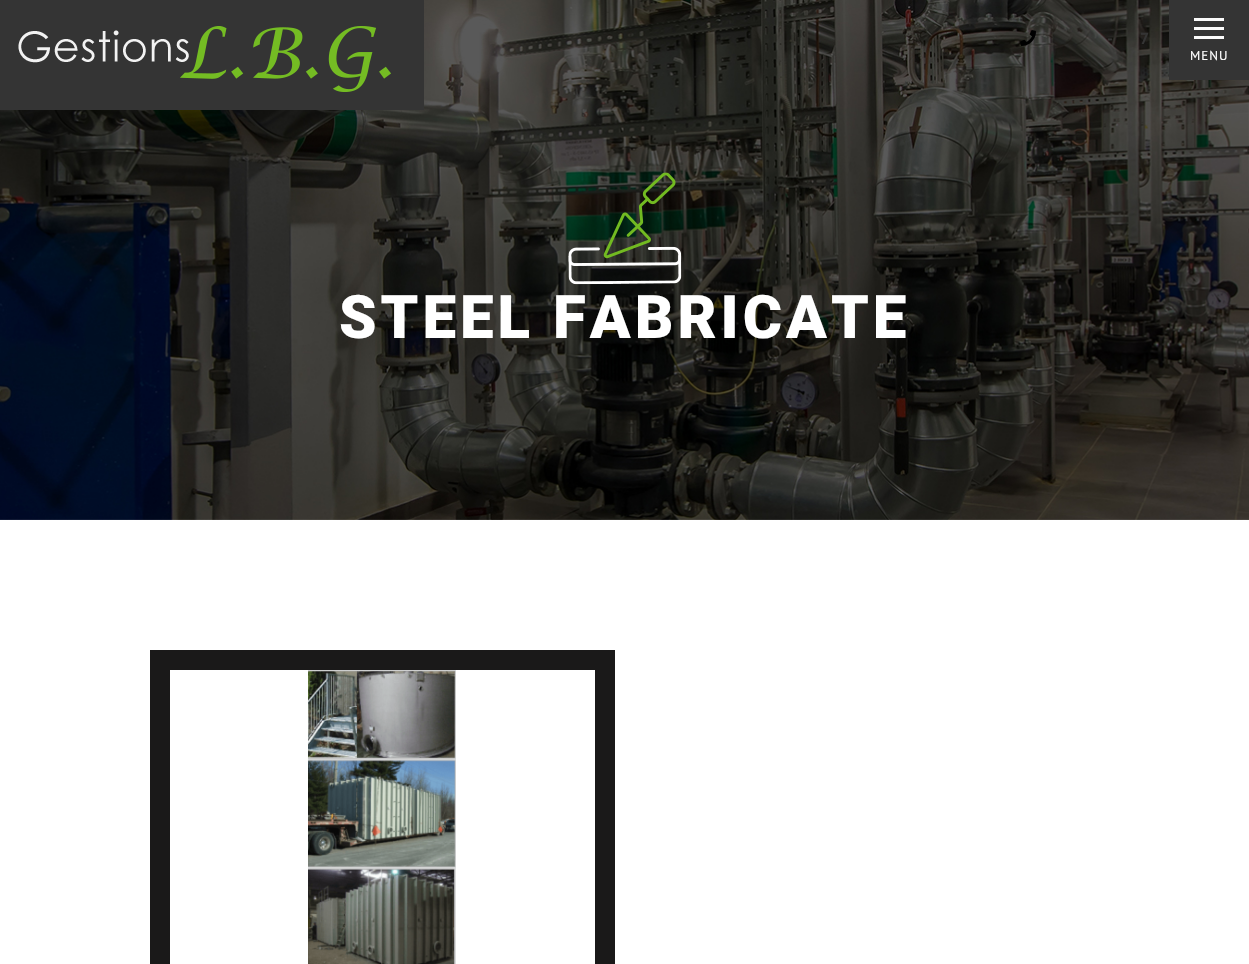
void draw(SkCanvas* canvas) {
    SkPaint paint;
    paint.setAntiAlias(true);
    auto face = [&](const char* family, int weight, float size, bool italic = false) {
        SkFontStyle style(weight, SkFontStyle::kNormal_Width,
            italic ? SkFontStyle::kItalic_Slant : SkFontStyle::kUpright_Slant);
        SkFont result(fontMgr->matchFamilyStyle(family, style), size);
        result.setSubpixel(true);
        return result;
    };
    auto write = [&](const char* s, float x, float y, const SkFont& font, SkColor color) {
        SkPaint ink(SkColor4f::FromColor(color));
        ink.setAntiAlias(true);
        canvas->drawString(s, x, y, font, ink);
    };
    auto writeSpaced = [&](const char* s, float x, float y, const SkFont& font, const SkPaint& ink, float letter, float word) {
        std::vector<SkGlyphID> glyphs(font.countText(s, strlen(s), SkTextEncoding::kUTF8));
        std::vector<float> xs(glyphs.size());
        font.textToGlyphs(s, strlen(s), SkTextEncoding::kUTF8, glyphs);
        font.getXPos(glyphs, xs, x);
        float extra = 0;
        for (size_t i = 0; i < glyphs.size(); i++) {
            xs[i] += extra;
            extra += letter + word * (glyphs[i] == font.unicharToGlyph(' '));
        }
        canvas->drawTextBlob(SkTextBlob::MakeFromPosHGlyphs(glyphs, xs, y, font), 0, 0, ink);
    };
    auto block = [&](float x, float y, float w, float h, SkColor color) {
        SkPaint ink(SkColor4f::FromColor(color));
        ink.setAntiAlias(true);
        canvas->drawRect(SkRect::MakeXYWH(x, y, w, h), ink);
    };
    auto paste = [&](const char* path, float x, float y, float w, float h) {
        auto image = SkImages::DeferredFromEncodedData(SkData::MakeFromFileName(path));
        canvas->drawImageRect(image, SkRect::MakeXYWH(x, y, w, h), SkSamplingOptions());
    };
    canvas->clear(SK_ColorWHITE);
    paste("pic3.png", 0, 0, 1249, 520);
    paste("pic1.png", 0, 0, 424, 110);
    paste("pic2.png", 1020, 30, 16, 16);
    auto kFont1 = face("PT Sans", 700, 16);
    write("-", 1107, 44, kFont1, SkColorSetRGB(52, 52, 52));
    write("7", 1140, 44, kFont1, SkColorSetRGB(52, 52, 52));
    block(1169, 0, 80, 80, SkColorSetRGB(52, 52, 52));
    block(1194, 18, 30, 3, SkColorSetRGB(251, 251, 251));
    block(1194, 27, 30, 3, SkColorSetRGB(251, 251, 251));
    block(1194, 36, 30, 3, SkColorSetRGB(251, 251, 251));
    auto kFont2 = face("PT Sans", 400, 13);
    paint.setColor(SK_ColorWHITE);
    writeSpaced("MENU", 1190, 60, kFont2, paint, 1, 0);
    paste("pic4.png", 568, 172, 114, 113);
    auto kFont3 = face("Roboto", 900, 60);
    writeSpaced("STEEL FABRICATE", 339, 338, kFont3, paint, 4, 0);
    block(150, 650, 465, 314, SkColorSetRGB(26, 25, 25));
    block(170, 670, 425, 294, SK_ColorWHITE);
    paste("pic5.png", 308, 670, 148, 294);
}
